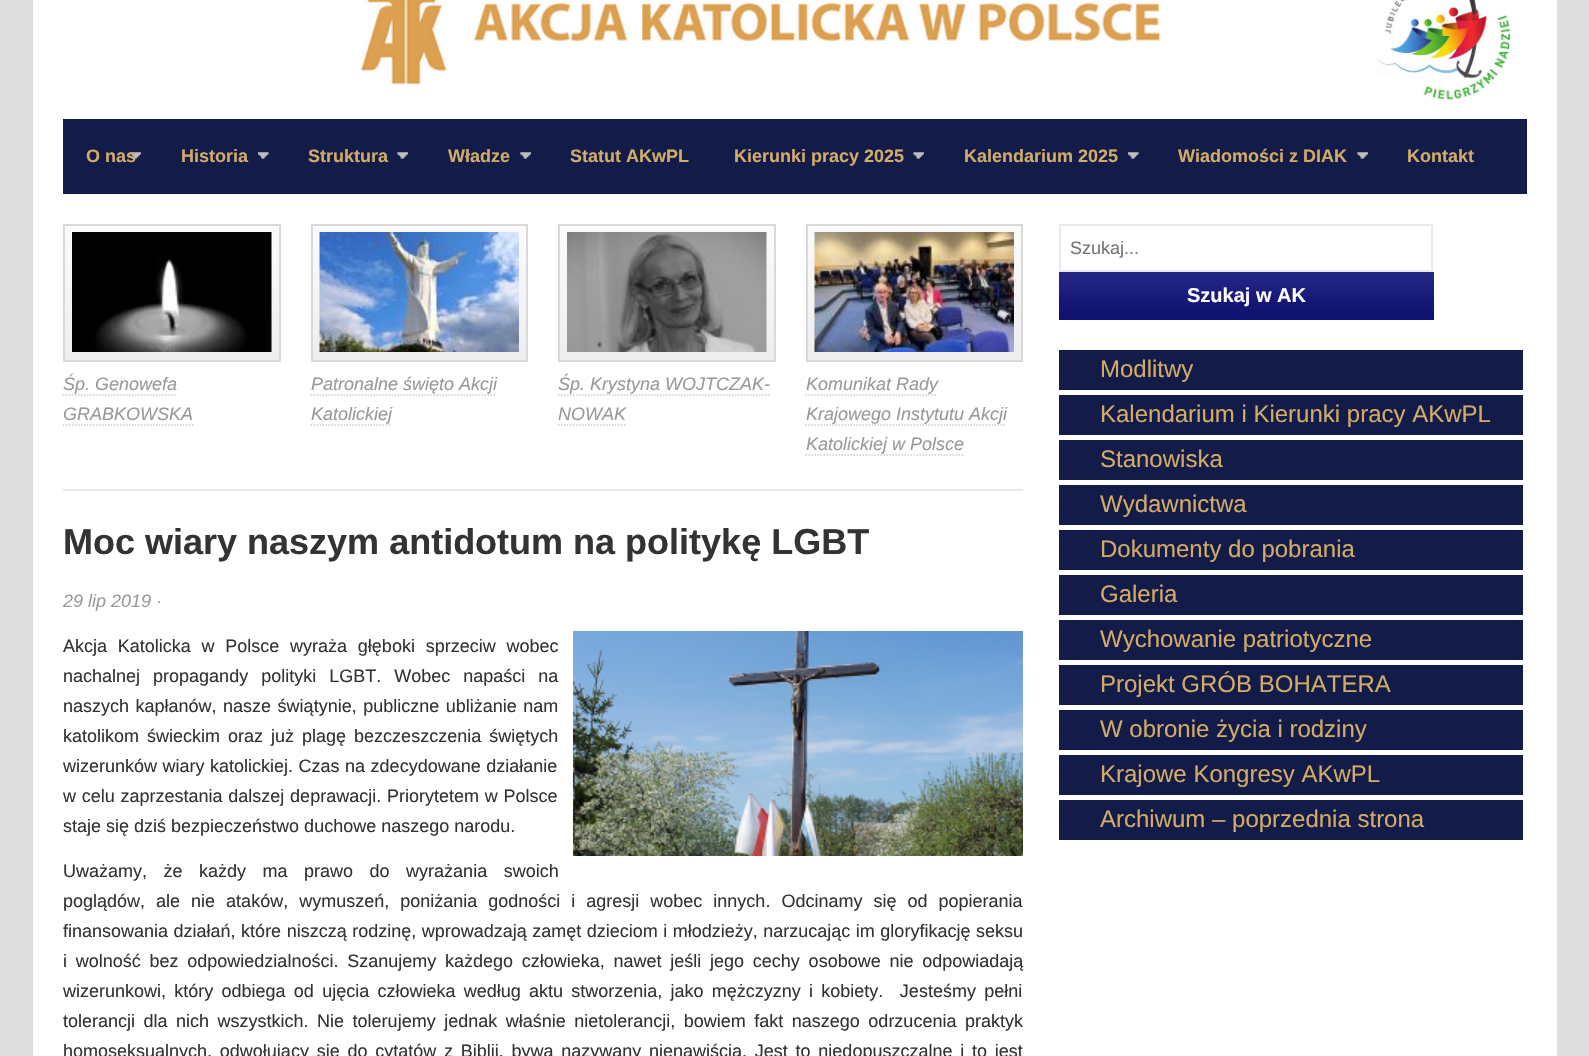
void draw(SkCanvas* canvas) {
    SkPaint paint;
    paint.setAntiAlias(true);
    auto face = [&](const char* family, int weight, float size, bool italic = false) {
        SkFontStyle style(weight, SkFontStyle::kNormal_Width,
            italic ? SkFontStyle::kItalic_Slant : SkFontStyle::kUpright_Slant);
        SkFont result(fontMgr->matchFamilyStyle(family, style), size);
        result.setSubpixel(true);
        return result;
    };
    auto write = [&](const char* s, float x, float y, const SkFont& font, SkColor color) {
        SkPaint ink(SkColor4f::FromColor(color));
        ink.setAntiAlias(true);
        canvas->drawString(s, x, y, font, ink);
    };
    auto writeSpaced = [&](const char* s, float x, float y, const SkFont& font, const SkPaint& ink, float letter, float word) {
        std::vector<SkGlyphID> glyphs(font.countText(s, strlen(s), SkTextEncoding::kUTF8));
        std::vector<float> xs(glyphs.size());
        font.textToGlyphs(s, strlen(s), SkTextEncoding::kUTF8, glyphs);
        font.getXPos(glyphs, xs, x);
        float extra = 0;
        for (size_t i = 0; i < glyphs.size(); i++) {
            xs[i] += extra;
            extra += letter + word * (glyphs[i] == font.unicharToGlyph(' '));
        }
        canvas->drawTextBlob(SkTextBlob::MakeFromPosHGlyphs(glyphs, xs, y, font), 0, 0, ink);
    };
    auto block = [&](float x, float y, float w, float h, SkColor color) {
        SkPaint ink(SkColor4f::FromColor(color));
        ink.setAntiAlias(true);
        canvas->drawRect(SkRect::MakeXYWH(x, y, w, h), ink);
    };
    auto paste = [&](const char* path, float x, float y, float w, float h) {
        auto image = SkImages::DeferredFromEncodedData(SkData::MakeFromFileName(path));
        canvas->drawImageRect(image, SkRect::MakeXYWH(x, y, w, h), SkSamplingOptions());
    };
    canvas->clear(SkColorSetRGB(221, 221, 221));
    block(33, 0, 1524, 1056, SK_ColorWHITE);
    paste("pic1.png", 360, 0, 801, 85);
    paste("pic2.png", 1377, 0, 134, 101);
    block(63, 119, 1464, 75, SkColorSetRGB(19, 27, 72));
    paste("pic3.png", 130, 152, 11, 7);
    paste("pic4.png", 130, 152, 11, 7);
    auto kFont1 = face("Liberation Sans", 700, 18);
    write("O nas", 86, 162, kFont1, SkColorSetRGB(210, 171, 103));
    write("Historia", 181, 162, kFont1, SkColorSetRGB(210, 171, 103));
    paste("pic5.png", 258, 152, 11, 7);
    paste("pic6.png", 258, 152, 11, 7);
    write("Struktura", 308, 162, kFont1, SkColorSetRGB(210, 171, 103));
    paste("pic7.png", 397, 152, 11, 7);
    paste("pic8.png", 397, 152, 11, 7);
    write("Władze", 448, 162, kFont1, SkColorSetRGB(210, 171, 103));
    paste("pic7.png", 520, 152, 11, 7);
    paste("pic8.png", 520, 152, 11, 7);
    write("Statut AKwPL", 570, 162, kFont1, SkColorSetRGB(210, 171, 103));
    write("Kierunki pracy 2025", 734, 162, kFont1, SkColorSetRGB(210, 171, 103));
    paste("pic3.png", 913, 152, 11, 7);
    paste("pic4.png", 913, 152, 11, 7);
    write("Kalendarium 2025", 964, 162, kFont1, SkColorSetRGB(210, 171, 103));
    paste("pic9.png", 1128, 152, 11, 7);
    paste("pic10.png", 1128, 152, 11, 7);
    write("Wiadomości z DIAK", 1178, 162, kFont1, SkColorSetRGB(210, 171, 103));
    paste("pic7.png", 1357, 152, 11, 7);
    paste("pic8.png", 1357, 152, 11, 7);
    write("Kontakt", 1407, 162, kFont1, SkColorSetRGB(210, 171, 103));
    {
        const SkColor colors[] = {SkColorSetRGB(251, 251, 251), SkColorSetRGB(238, 238, 238)};
        const float stops[] = {0, 1};
        const SkPoint ends[] = {{172, 225}, {172, 360}};
        paint.setShader(SkGradientShader::MakeLinear(ends, colors, stops, 2, SkTileMode::kClamp));
        paint.setAlpha(255);
    }
    canvas->drawRect(SkRect::MakeXYWH(65, 226, 214, 134), paint);
    paint.setStyle(SkPaint::kStroke_Style);
    paint.setStrokeWidth(2);
    paint.setShader(nullptr);
    paint.setColor(SkColorSetRGB(217, 217, 217));
    canvas->drawRect(SkRect::MakeXYWH(64, 225, 216, 136), paint);
    paste("pic11.png", 72, 232, 200, 120);
    auto kFont2 = face("Liberation Sans", 400, 18, true);
    write("Śp. Genowefa", 63, 390, kFont2, SkColorSetRGB(153, 153, 153));
    paint.setStrokeWidth(1.5f);
    paint.setColor(SkColorSetRGB(204, 204, 204));
    paint.setPathEffect(SkDashPathEffect::Make({{1.5f, 1.5f}}, 0));
    canvas->drawPath(SkPathBuilder().moveTo(63, 395).lineTo(177, 395).detach(), paint);
    paint.setPathEffect(nullptr);
    write("GRABKOWSKA", 63, 420, kFont2, SkColorSetRGB(153, 153, 153));
    paint.setPathEffect(SkDashPathEffect::Make({{1.5f, 1.5f}}, 0));
    canvas->drawPath(SkPathBuilder().moveTo(63, 425).lineTo(193.5f, 425).detach(), paint);
    paint.setPathEffect(nullptr);
    paint.setStyle(SkPaint::kFill_Style);
    {
        const SkColor colors[] = {SkColorSetRGB(251, 251, 251), SkColorSetRGB(238, 238, 238)};
        const float stops[] = {0, 1};
        const SkPoint ends[] = {{419, 225}, {419, 360}};
        paint.setShader(SkGradientShader::MakeLinear(ends, colors, stops, 2, SkTileMode::kClamp));
        paint.setAlpha(255);
    }
    canvas->drawRect(SkRect::MakeXYWH(313, 226, 213, 134), paint);
    paint.setStyle(SkPaint::kStroke_Style);
    paint.setStrokeWidth(2);
    paint.setShader(nullptr);
    paint.setColor(SkColorSetRGB(217, 217, 217));
    canvas->drawRect(SkRect::MakeXYWH(312, 225, 215, 136), paint);
    paste("pic12.png", 319, 232, 200, 120);
    write("Patronalne święto Akcji", 311, 390, kFont2, SkColorSetRGB(153, 153, 153));
    paint.setStrokeWidth(1.5f);
    paint.setColor(SkColorSetRGB(204, 204, 204));
    paint.setPathEffect(SkDashPathEffect::Make({{1.5f, 1.5f}}, 0));
    canvas->drawPath(SkPathBuilder().moveTo(310.5f, 395).lineTo(496.5f, 395).detach(), paint);
    paint.setPathEffect(nullptr);
    write("Katolickiej", 311, 420, kFont2, SkColorSetRGB(153, 153, 153));
    paint.setPathEffect(SkDashPathEffect::Make({{1.5f, 1.5f}}, 0));
    canvas->drawPath(SkPathBuilder().moveTo(310.5f, 425).lineTo(391.5f, 425).detach(), paint);
    paint.setPathEffect(nullptr);
    paint.setStyle(SkPaint::kFill_Style);
    {
        const SkColor colors[] = {SkColorSetRGB(251, 251, 251), SkColorSetRGB(238, 238, 238)};
        const float stops[] = {0, 1};
        const SkPoint ends[] = {{667, 225}, {667, 360}};
        paint.setShader(SkGradientShader::MakeLinear(ends, colors, stops, 2, SkTileMode::kClamp));
        paint.setAlpha(255);
    }
    canvas->drawRect(SkRect::MakeXYWH(560, 226, 214, 134), paint);
    paint.setStyle(SkPaint::kStroke_Style);
    paint.setStrokeWidth(2);
    paint.setShader(nullptr);
    paint.setColor(SkColorSetRGB(217, 217, 217));
    canvas->drawRect(SkRect::MakeXYWH(559, 225, 216, 136), paint);
    paste("pic13.png", 567, 232, 200, 120);
    write("Śp. Krystyna WOJTCZAK-", 558, 390, kFont2, SkColorSetRGB(153, 153, 153));
    paint.setStrokeWidth(1.5f);
    paint.setColor(SkColorSetRGB(204, 204, 204));
    paint.setPathEffect(SkDashPathEffect::Make({{1.5f, 1.5f}}, 0));
    canvas->drawPath(SkPathBuilder().moveTo(558, 395).lineTo(769.5f, 395).detach(), paint);
    paint.setPathEffect(nullptr);
    write("NOWAK", 558, 420, kFont2, SkColorSetRGB(153, 153, 153));
    paint.setPathEffect(SkDashPathEffect::Make({{1.5f, 1.5f}}, 0));
    canvas->drawPath(SkPathBuilder().moveTo(558, 425).lineTo(625.5f, 425).detach(), paint);
    paint.setPathEffect(nullptr);
    paint.setStyle(SkPaint::kFill_Style);
    {
        const SkColor colors[] = {SkColorSetRGB(251, 251, 251), SkColorSetRGB(238, 238, 238)};
        const float stops[] = {0, 1};
        const SkPoint ends[] = {{914, 225}, {914, 360}};
        paint.setShader(SkGradientShader::MakeLinear(ends, colors, stops, 2, SkTileMode::kClamp));
        paint.setAlpha(255);
    }
    canvas->drawRect(SkRect::MakeXYWH(808, 226, 213, 134), paint);
    paint.setStyle(SkPaint::kStroke_Style);
    paint.setStrokeWidth(2);
    paint.setShader(nullptr);
    paint.setColor(SkColorSetRGB(217, 217, 217));
    canvas->drawRect(SkRect::MakeXYWH(807, 225, 215, 136), paint);
    paste("pic14.png", 814, 232, 200, 120);
    write("Komunikat Rady", 806, 390, kFont2, SkColorSetRGB(153, 153, 153));
    paint.setStrokeWidth(1.5f);
    paint.setColor(SkColorSetRGB(204, 204, 204));
    paint.setPathEffect(SkDashPathEffect::Make({{1.5f, 1.5f}}, 0));
    canvas->drawPath(SkPathBuilder().moveTo(805.5f, 395).lineTo(937.5f, 395).detach(), paint);
    paint.setPathEffect(nullptr);
    write("Krajowego Instytutu Akcji", 806, 420, kFont2, SkColorSetRGB(153, 153, 153));
    paint.setPathEffect(SkDashPathEffect::Make({{1.5f, 1.5f}}, 0));
    canvas->drawPath(SkPathBuilder().moveTo(805.5f, 425).lineTo(1006.5f, 425).detach(), paint);
    paint.setPathEffect(nullptr);
    write("Katolickiej w Polsce", 806, 450, kFont2, SkColorSetRGB(153, 153, 153));
    paint.setPathEffect(SkDashPathEffect::Make({{1.5f, 1.5f}}, 0));
    canvas->drawPath(SkPathBuilder().moveTo(805.5f, 455).lineTo(963, 455).detach(), paint);
    paint.setPathEffect(nullptr);
    block(63, 489, 960, 2, SkColorSetRGB(233, 233, 233));
    auto kFont3 = face("Liberation Sans", 700, 36);
    write("Moc wiary naszym antidotum na politykę LGBT", 63, 554, kFont3, SkColorSetRGB(51, 51, 51));
    write("29 lip 2019 ·", 63, 607, kFont2, SkColorSetRGB(153, 153, 153));
    auto kFont4 = face("Liberation Sans", 400, 18);
    paint.setStyle(SkPaint::kFill_Style);
    paint.setColor(SkColorSetRGB(51, 51, 51));
    writeSpaced("Akcja Katolicka w Polsce wyraża głęboki sprzeciw wobec", 63, 652, kFont4, paint, 0, 5.75f);
    paste("pic15.png", 573, 631, 450, 225);
    writeSpaced("nachalnej propagandy polityki LGBT. Wobec napaści na", 63, 682, kFont4, paint, 0, 8);
    writeSpaced("naszych kapłanów, nasze świątynie, publiczne ubliżanie nam", 63, 712, kFont4, paint, 0, 1.5f);
    writeSpaced("katolikom świeckim oraz już plagę bezczeszczenia świętych", 63, 742, kFont4, paint, 0, 3);
    writeSpaced("wizerunków wiary katolickiej. Czas na zdecydowane działanie", 63, 772, kFont4, paint, 0, 0.5f);
    writeSpaced("w celu zaprzestania dalszej deprawacji. Priorytetem w Polsce", 63, 802, kFont4, paint, 0, 0.75f);
    write("staje się dziś bezpieczeństwo duchowe naszego narodu.", 63, 832, kFont4, SkColorSetRGB(51, 51, 51));
    writeSpaced("Uważamy, że każdy ma prawo do wyrażania swoich", 63, 877, kFont4, paint, 0, 11.5f);
    writeSpaced("poglądów, ale nie ataków, wymuszeń, poniżania godności i agresji wobec innych. Odcinamy się od popierania", 63, 907, kFont4, paint, 0, 6);
    writeSpaced("finansowania działań, które niszczą rodzinę, wprowadzają zamęt dzieciom i młodzieży, narzucając im gloryfikację seksu", 63, 937, kFont4, paint, 0, 0.5f);
    writeSpaced("i wolność bez odpowiedzialności. Szanujemy każdego człowieka, nawet jeśli jego cechy osobowe nie odpowiadają", 63, 967, kFont4, paint, 0, 3.75f);
    writeSpaced("wizerunkowi, który odbiega od ujęcia człowieka według aktu stworzenia, jako mężczyzny i kobiety.  Jesteśmy pełni", 63, 997, kFont4, paint, 0, 3.25f);
    writeSpaced("tolerancji dla nich wszystkich. Nie tolerujemy jednak właśnie nietolerancji, bowiem fakt naszego odrzucenia praktyk", 63, 1027, kFont4, paint, 0, 3.5f);
    writeSpaced("homoseksualnych, odwołujący się do cytatów z Biblii, bywa nazywany nienawiścią. Jest to niedopuszczalne i to jest", 63, 1057, kFont4, paint, 0, 2.75f);
    paint.setStyle(SkPaint::kStroke_Style);
    paint.setStrokeWidth(2);
    paint.setColor(SkColorSetRGB(233, 233, 233));
    canvas->drawRect(SkRect::MakeXYWH(1060, 225, 372, 46), paint);
    write("Szukaj...", 1070, 254, kFont4, SkColorSetRGB(117, 117, 117));
    block(1059, 272, 375, 48, SkColorSetRGB(16, 18, 123));
    paste("pic16.png", 1059, 272, 375, 47);
    auto kFont5 = face("Liberation Sans", 700, 20);
    write("Szukaj w AK", 1187, 302, kFont5, SK_ColorWHITE);
    block(1059, 350, 464, 40, SkColorSetRGB(19, 27, 72));
    auto kFont6 = face("Liberation Sans", 400, 24);
    write("Modlitwy", 1100, 377, kFont6, SkColorSetRGB(210, 171, 103));
    block(1059, 395, 464, 40, SkColorSetRGB(19, 27, 72));
    write("Kalendarium i Kierunki pracy AKwPL", 1100, 422, kFont6, SkColorSetRGB(210, 171, 103));
    block(1059, 440, 464, 40, SkColorSetRGB(19, 27, 72));
    write("Stanowiska", 1100, 467, kFont6, SkColorSetRGB(210, 171, 103));
    block(1059, 485, 464, 40, SkColorSetRGB(19, 27, 72));
    write("Wydawnictwa", 1100, 512, kFont6, SkColorSetRGB(210, 171, 103));
    block(1059, 530, 464, 40, SkColorSetRGB(19, 27, 72));
    write("Dokumenty do pobrania", 1100, 557, kFont6, SkColorSetRGB(210, 171, 103));
    block(1059, 575, 464, 40, SkColorSetRGB(19, 27, 72));
    write("Galeria", 1100, 602, kFont6, SkColorSetRGB(210, 171, 103));
    block(1059, 620, 464, 40, SkColorSetRGB(19, 27, 72));
    write("Wychowanie patriotyczne", 1100, 647, kFont6, SkColorSetRGB(210, 171, 103));
    block(1059, 665, 464, 40, SkColorSetRGB(19, 27, 72));
    write("Projekt GRÓB BOHATERA", 1100, 692, kFont6, SkColorSetRGB(210, 171, 103));
    block(1059, 710, 464, 40, SkColorSetRGB(19, 27, 72));
    write("W obronie życia i rodziny", 1100, 737, kFont6, SkColorSetRGB(210, 171, 103));
    block(1059, 755, 464, 40, SkColorSetRGB(19, 27, 72));
    write("Krajowe Kongresy AKwPL", 1100, 782, kFont6, SkColorSetRGB(210, 171, 103));
    block(1059, 800, 464, 40, SkColorSetRGB(19, 27, 72));
    write("Archiwum – poprzednia strona", 1100, 827, kFont6, SkColorSetRGB(210, 171, 103));
}
